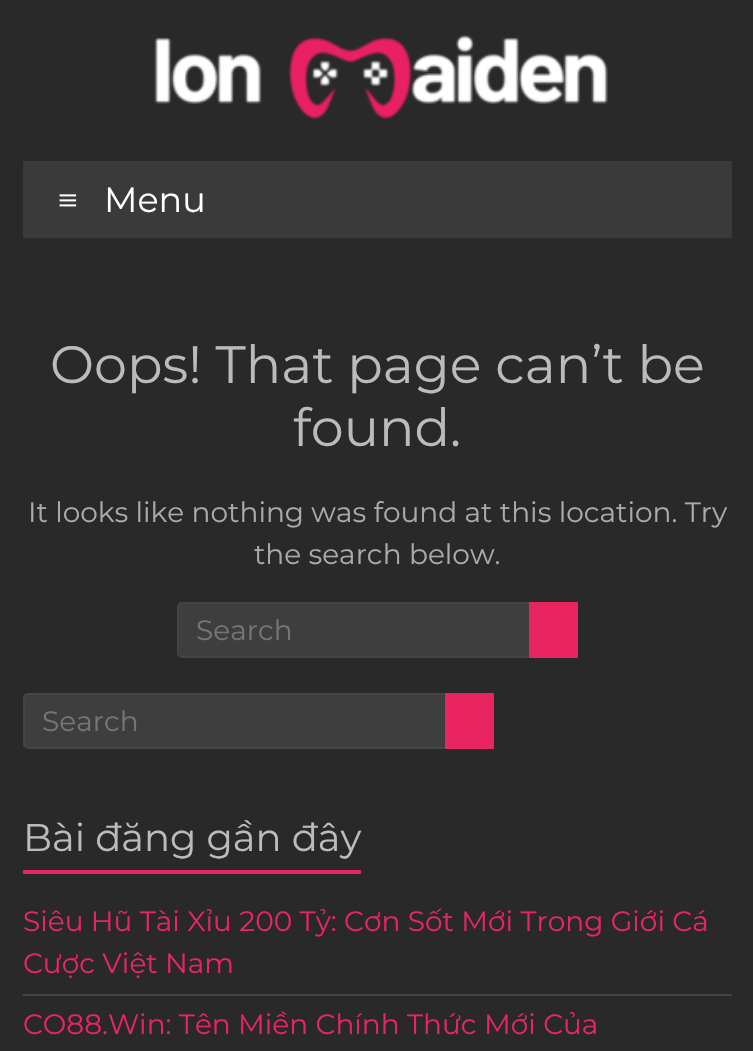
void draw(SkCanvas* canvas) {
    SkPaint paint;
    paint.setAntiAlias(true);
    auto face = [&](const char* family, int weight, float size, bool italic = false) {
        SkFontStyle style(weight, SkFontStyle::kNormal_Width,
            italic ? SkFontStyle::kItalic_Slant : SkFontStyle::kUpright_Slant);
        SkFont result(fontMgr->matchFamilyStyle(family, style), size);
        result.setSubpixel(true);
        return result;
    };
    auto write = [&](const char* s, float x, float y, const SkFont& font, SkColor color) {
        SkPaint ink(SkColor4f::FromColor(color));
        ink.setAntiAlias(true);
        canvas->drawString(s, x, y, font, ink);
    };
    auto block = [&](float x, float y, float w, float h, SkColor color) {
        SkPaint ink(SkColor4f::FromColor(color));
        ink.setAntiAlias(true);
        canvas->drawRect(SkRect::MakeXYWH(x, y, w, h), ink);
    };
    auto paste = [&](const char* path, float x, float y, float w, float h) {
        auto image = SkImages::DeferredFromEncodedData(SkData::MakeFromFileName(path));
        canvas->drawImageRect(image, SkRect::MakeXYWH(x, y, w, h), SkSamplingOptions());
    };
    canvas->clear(SkColorSetRGB(41, 41, 41));
    paste("pic1.png", 154, 34, 454, 86);
    block(23, 161, 709, 77, SkColorSetRGB(58, 58, 58));
    auto kFont1 = face("Liberation Serif", 400, 35);
    write("≡", 58, 212, kFont1, SK_ColorWHITE);
    auto kFont2 = face("Montserrat", 100, 35);
    write("Menu", 104, 212, kFont2, SK_ColorWHITE);
    auto kFont3 = face("Montserrat", 100, 52.5f);
    write("Oops! That page can’t be", 50, 383, kFont3, SkColorSetRGB(187, 187, 187));
    write("found.", 293, 446, kFont3, SkColorSetRGB(187, 187, 187));
    auto kFont4 = face("Montserrat", 100, 28);
    write("It looks like nothing was found at this location. Try", 28, 522, kFont4, SkColorSetRGB(170, 170, 170));
    write("the search below.", 254, 564, kFont4, SkColorSetRGB(170, 170, 170));
    paint.setColor(SkColorSetRGB(62, 62, 62));
    canvas->drawRoundRect(SkRect::MakeXYWH(178, 603, 353, 54), 4, 4, paint);
    paint.setStyle(SkPaint::kStroke_Style);
    paint.setStrokeWidth(2);
    paint.setColor(SkColorSetRGB(68, 68, 68));
    canvas->drawRoundRect(SkRect::MakeXYWH(178, 603, 353, 54), 4, 4, paint);
    write("Search", 196, 640, kFont4, SkColorSetRGB(117, 117, 117));
    block(529, 602, 49, 56, SkColorSetRGB(232, 37, 97));
    paint.setStyle(SkPaint::kFill_Style);
    paint.setColor(SkColorSetRGB(62, 62, 62));
    canvas->drawRoundRect(SkRect::MakeXYWH(24, 694, 423, 54), 4, 4, paint);
    paint.setStyle(SkPaint::kStroke_Style);
    paint.setColor(SkColorSetRGB(68, 68, 68));
    canvas->drawRoundRect(SkRect::MakeXYWH(24, 694, 423, 54), 4, 4, paint);
    write("Search", 42, 731, kFont4, SkColorSetRGB(117, 117, 117));
    block(445, 693, 49, 56, SkColorSetRGB(232, 37, 97));
    auto kFont5 = face("Montserrat", 100, 38.5f);
    write("Bài đăng gần đây", 23, 851, kFont5, SkColorSetRGB(187, 187, 187));
    block(23, 870, 338, 4, SkColorSetRGB(232, 37, 97));
    block(23, 994, 709, 2, SkColorSetRGB(68, 68, 68));
    write("Siêu Hũ Tài Xỉu 200 Tỷ: Cơn Sốt Mới Trong Giới Cá", 23, 931, kFont4, SkColorSetRGB(232, 37, 97));
    write("Cược Việt Nam", 23, 973, kFont4, SkColorSetRGB(232, 37, 97));
    write("CO88.Win: Tên Miền Chính Thức Mới Của", 23, 1034, kFont4, SkColorSetRGB(232, 37, 97));
}
